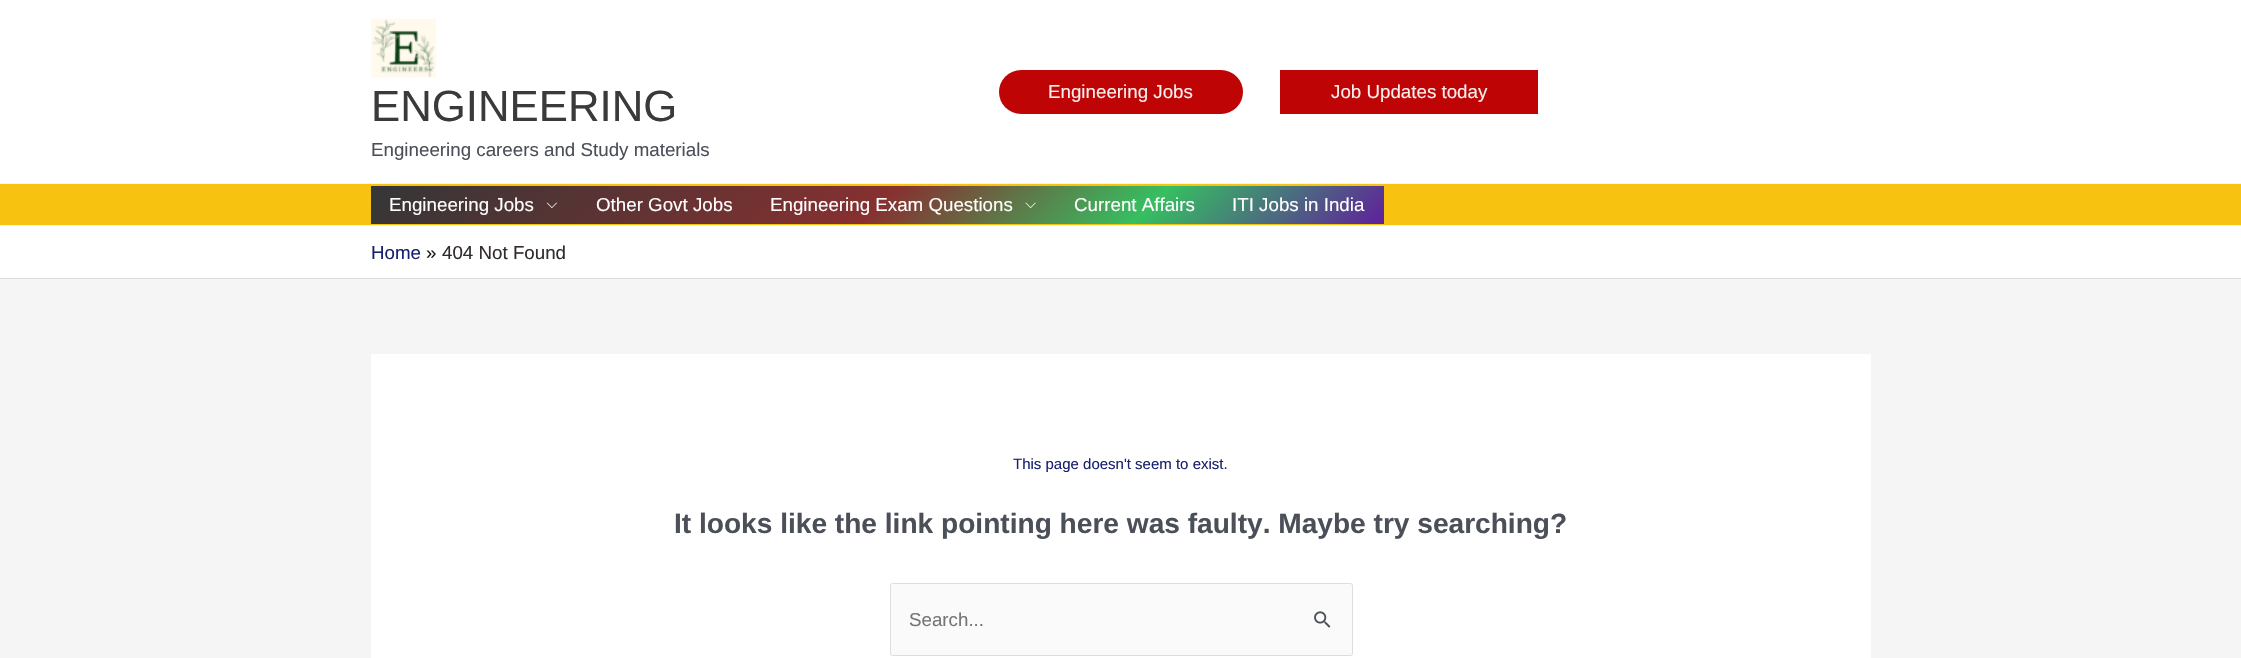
void draw(SkCanvas* canvas) {
    SkPaint paint;
    paint.setAntiAlias(true);
    auto face = [&](const char* family, int weight, float size, bool italic = false) {
        SkFontStyle style(weight, SkFontStyle::kNormal_Width,
            italic ? SkFontStyle::kItalic_Slant : SkFontStyle::kUpright_Slant);
        SkFont result(fontMgr->matchFamilyStyle(family, style), size);
        result.setSubpixel(true);
        return result;
    };
    auto write = [&](const char* s, float x, float y, const SkFont& font, SkColor color) {
        SkPaint ink(SkColor4f::FromColor(color));
        ink.setAntiAlias(true);
        canvas->drawString(s, x, y, font, ink);
    };
    auto block = [&](float x, float y, float w, float h, SkColor color) {
        SkPaint ink(SkColor4f::FromColor(color));
        ink.setAntiAlias(true);
        canvas->drawRect(SkRect::MakeXYWH(x, y, w, h), ink);
    };
    auto card = [&](float x, float y, float w, float h, float radius, SkColor color) {
        SkPaint ink(SkColor4f::FromColor(color));
        ink.setAntiAlias(true);
        canvas->drawRoundRect(SkRect::MakeXYWH(x, y, w, h), radius, radius, ink);
    };
    auto paste = [&](const char* path, float x, float y, float w, float h) {
        auto image = SkImages::DeferredFromEncodedData(SkData::MakeFromFileName(path));
        canvas->drawImageRect(image, SkRect::MakeXYWH(x, y, w, h), SkSamplingOptions());
    };
    canvas->clear(SkColorSetRGB(245, 245, 245));
    block(0, 0, 2241, 183, SK_ColorWHITE);
    block(0, 183, 2241, 1, SkColorSetRGB(242, 245, 247));
    paste("pic1.png", 371, 18, 66, 60);
    auto kFont1 = face("Liberation Sans", 400, 43.75f);
    write("ENGINEERING", 371, 121, kFont1, SkColorSetRGB(58, 58, 58));
    auto kFont2 = face("Liberation Sans", 400, 18.75f);
    write("Engineering careers and Study materials", 371, 156, kFont2, SkColorSetRGB(75, 79, 88));
    card(999, 70, 244, 44, 22, SkColorSetRGB(190, 4, 4));
    write("Engineering Jobs", 1048, 98, kFont2, SkColorSetRGB(247, 240, 240));
    block(1280, 70, 258, 44, SkColorSetRGB(190, 4, 4));
    write("Job Updates today", 1331, 98, kFont2, SkColorSetRGB(247, 240, 240));
    block(0, 184, 2241, 41, SkColorSetRGB(248, 194, 17));
    block(0, 225, 2241, 1, SkColorSetRGB(242, 245, 247));
    {
        const SkColor colors[] = {SkColorSetRGB(52, 54, 55), SkColorSetRGB(135, 48, 48), SkColorSetRGB(54, 191, 97), SkColorSetRGB(95, 32, 155)};
        const float stops[] = {0, 0.5f, 0.76f, 1};
        const SkPoint ends[] = {{615, -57}, {1140, 468}};
        paint.setShader(SkGradientShader::MakeLinear(ends, colors, stops, 4, SkTileMode::kClamp));
        paint.setAlpha(255);
    }
    canvas->drawRect(SkRect::MakeXYWH(371, 186, 1013, 38), paint);
    write("Engineering Jobs", 389, 211, kFont2, SK_ColorWHITE);
    paste("pic2.png", 546, 202, 11, 6);
    write("Other Govt Jobs", 596, 211, kFont2, SK_ColorWHITE);
    write("Engineering Exam Questions", 770, 211, kFont2, SK_ColorWHITE);
    paste("pic3.png", 1025, 202, 11, 6);
    write("Current Affairs", 1074, 211, kFont2, SK_ColorWHITE);
    write("ITI Jobs in India", 1232, 211, kFont2, SK_ColorWHITE);
    block(0, 226, 2241, 52, SK_ColorWHITE);
    block(0, 278, 2241, 1, SkColorSetRGB(221, 221, 221));
    write("Home", 371, 259, kFont2, SkColorSetRGB(26, 32, 111));
    write("»", 426, 259, kFont2, SkColorSetRGB(22, 20, 20));
    write("404 Not Found", 442, 259, kFont2, SkColorSetRGB(51, 44, 44));
    block(371, 354, 1500, 304, SK_ColorWHITE);
    auto kFont3 = face("Liberation Sans", 400, 15);
    write("This page doesn't seem to exist.", 1013, 469, kFont3, SkColorSetRGB(26, 32, 111));
    auto kFont4 = face("Liberation Sans", 700, 28.1f);
    write("It looks like the link pointing here was faulty. Maybe try searching?", 674, 533, kFont4, SkColorSetRGB(75, 79, 88));
    paint.setShader(nullptr);
    paint.setColor(SkColorSetRGB(250, 250, 250));
    canvas->drawRoundRect(SkRect::MakeXYWH(890.5f, 583.5f, 462, 72), 2, 2, paint);
    paint.setStyle(SkPaint::kStroke_Style);
    paint.setStrokeWidth(1);
    paint.setColor(SkColorSetRGB(221, 221, 221));
    canvas->drawRoundRect(SkRect::MakeXYWH(890.5f, 583.5f, 462, 72), 2, 2, paint);
    write("Search...", 909, 626, kFont2, SkColorSetRGB(117, 117, 117));
    paste("pic4.png", 1314, 611, 17, 17);
}
